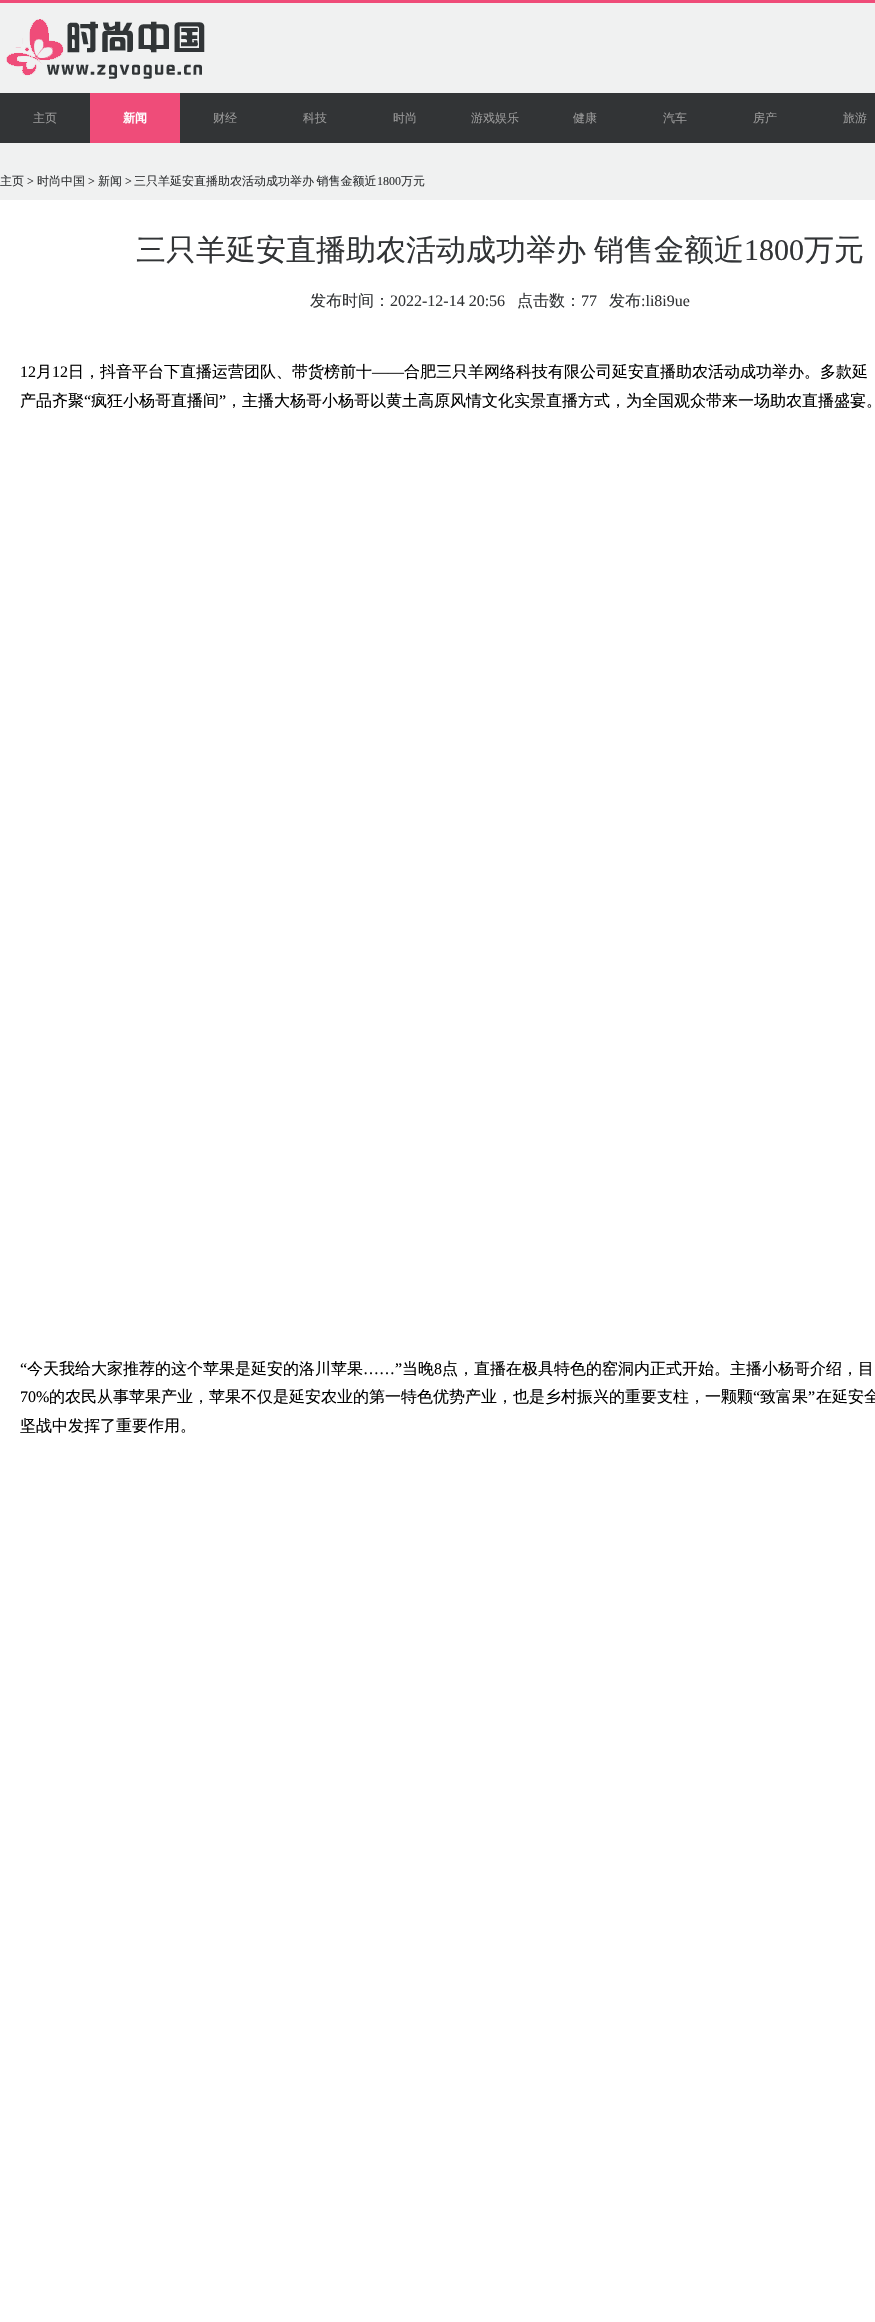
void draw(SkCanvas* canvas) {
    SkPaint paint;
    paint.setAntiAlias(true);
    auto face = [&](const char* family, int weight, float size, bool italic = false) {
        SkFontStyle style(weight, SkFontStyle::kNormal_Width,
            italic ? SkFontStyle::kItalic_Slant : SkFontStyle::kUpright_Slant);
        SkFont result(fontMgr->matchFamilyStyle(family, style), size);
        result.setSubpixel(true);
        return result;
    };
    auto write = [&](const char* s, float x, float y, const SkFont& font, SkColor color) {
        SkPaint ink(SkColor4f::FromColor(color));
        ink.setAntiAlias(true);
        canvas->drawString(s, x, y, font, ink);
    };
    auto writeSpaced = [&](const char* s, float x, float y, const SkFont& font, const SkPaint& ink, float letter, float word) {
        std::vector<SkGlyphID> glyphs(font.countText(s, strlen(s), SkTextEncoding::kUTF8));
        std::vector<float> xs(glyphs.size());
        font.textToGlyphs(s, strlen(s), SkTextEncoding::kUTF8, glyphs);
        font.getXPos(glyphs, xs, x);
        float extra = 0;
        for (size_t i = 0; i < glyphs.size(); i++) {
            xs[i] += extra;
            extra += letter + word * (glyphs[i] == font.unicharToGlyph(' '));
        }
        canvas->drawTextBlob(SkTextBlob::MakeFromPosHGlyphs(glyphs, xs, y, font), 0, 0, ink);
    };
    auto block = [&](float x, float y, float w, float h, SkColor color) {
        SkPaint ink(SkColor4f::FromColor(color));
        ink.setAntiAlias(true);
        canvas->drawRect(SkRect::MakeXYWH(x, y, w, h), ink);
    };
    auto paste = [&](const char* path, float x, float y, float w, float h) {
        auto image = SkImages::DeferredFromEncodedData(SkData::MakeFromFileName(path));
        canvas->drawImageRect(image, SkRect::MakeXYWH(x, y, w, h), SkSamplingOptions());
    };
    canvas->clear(SkColorSetRGB(240, 241, 241));
    block(0, 0, 875, 3, SkColorSetRGB(239, 76, 121));
    paste("pic1.png", 6, 19, 199, 60);
    block(0, 93, 875, 50, SkColorSetRGB(50, 52, 54));
    auto kFont1 = face("WenQuanYi Zen Hei", 500, 12);
    write("主页", 33, 122, kFont1, SkColorSetRGB(153, 153, 153));
    block(90, 93, 90, 50, SkColorSetRGB(239, 76, 121));
    auto kFont2 = face("WenQuanYi Zen Hei", 700, 12);
    write("新闻", 123, 122, kFont2, SK_ColorWHITE);
    write("财经", 213, 122, kFont1, SkColorSetRGB(153, 153, 153));
    write("科技", 303, 122, kFont1, SkColorSetRGB(153, 153, 153));
    write("时尚", 393, 122, kFont1, SkColorSetRGB(153, 153, 153));
    write("游戏娱乐", 471, 122, kFont1, SkColorSetRGB(153, 153, 153));
    write("健康", 573, 122, kFont1, SkColorSetRGB(153, 153, 153));
    write("汽车", 663, 122, kFont1, SkColorSetRGB(153, 153, 153));
    write("房产", 753, 122, kFont1, SkColorSetRGB(153, 153, 153));
    write("旅游", 843, 122, kFont1, SkColorSetRGB(153, 153, 153));
    write("主页", 0, 185, kFont1, SkColorSetRGB(50, 52, 54));
    auto kFont3 = face("Liberation Serif", 400, 12);
    write(">", 27, 185, kFont3, SkColorSetRGB(50, 52, 54));
    write("时尚中国", 37, 185, kFont1, SkColorSetRGB(50, 52, 54));
    write(">", 88, 185, kFont3, SkColorSetRGB(50, 52, 54));
    write("新闻", 98, 185, kFont1, SkColorSetRGB(50, 52, 54));
    write(">", 125, 185, kFont3, SkColorSetRGB(50, 52, 54));
    paint.setColor(SkColorSetRGB(50, 52, 54));
    writeSpaced("三只羊延安直播助农活动成功举办 销售金额近", 134, 185, kFont1, paint, 0, -1);
    write("1800", 377, 185, kFont3, SkColorSetRGB(50, 52, 54));
    write("万元", 401, 185, kFont1, SkColorSetRGB(50, 52, 54));
    block(0, 200, 875, 2122, SK_ColorWHITE);
    auto kFont4 = face("WenQuanYi Zen Hei", 500, 30);
    writeSpaced("三只羊延安直播助农活动成功举办 销售金额近", 136, 260, kFont4, paint, 0, -1);
    auto kFont5 = face("Liberation Serif", 400, 30);
    write("1800", 744, 260, kFont5, SkColorSetRGB(50, 52, 54));
    write("万元", 804, 260, kFont4, SkColorSetRGB(50, 52, 54));
    auto kFont6 = face("WenQuanYi Zen Hei", 500, 16);
    write("发布时间：", 310, 306, kFont6, SkColorSetRGB(50, 52, 54));
    auto kFont7 = face("Liberation Serif", 400, 16);
    write("2022-12-14 20:56", 390, 306, kFont7, SkColorSetRGB(50, 52, 54));
    write("点击数：", 517, 306, kFont6, SkColorSetRGB(50, 52, 54));
    write("77", 581, 306, kFont7, SkColorSetRGB(50, 52, 54));
    write("发布", 609, 306, kFont6, SkColorSetRGB(50, 52, 54));
    write(":li8i9ue", 641, 306, kFont7, SkColorSetRGB(50, 52, 54));
    write("12", 20, 377, kFont7, SK_ColorBLACK);
    write("月", 36, 377, kFont6, SK_ColorBLACK);
    write("12", 52, 377, kFont7, SK_ColorBLACK);
    write("日，抖音平台下直播运营团队、带货榜前十", 68, 377, kFont6, SK_ColorBLACK);
    write("——", 372, 377, kFont7, SK_ColorBLACK);
    write("合肥三只羊网络科技有限公司延安直播助农活动成功举办。多款延", 404, 377, kFont6, SK_ColorBLACK);
    write("产品齐聚", 20, 406, kFont6, SK_ColorBLACK);
    write("“", 84, 406, kFont7, SK_ColorBLACK);
    write("疯狂小杨哥直播间", 91, 406, kFont6, SK_ColorBLACK);
    write("”", 219, 406, kFont7, SK_ColorBLACK);
    write("，主播大杨哥小杨哥以黄土高原风情文化实景直播方式，为全国观众带来一场助农直播盛宴。", 226, 406, kFont6, SK_ColorBLACK);
    write("“", 20, 1374, kFont7, SK_ColorBLACK);
    write("今天我给大家推荐的这个苹果是延安的洛川苹果", 27, 1374, kFont6, SK_ColorBLACK);
    write("……”", 363, 1374, kFont7, SK_ColorBLACK);
    write("当晚", 402, 1374, kFont6, SK_ColorBLACK);
    write("8", 434, 1374, kFont7, SK_ColorBLACK);
    write("点，直播在极具特色的窑洞内正式开始。主播小杨哥介绍，目", 442, 1374, kFont6, SK_ColorBLACK);
    write("70%", 20, 1402, kFont7, SK_ColorBLACK);
    write("的农民从事苹果产业，苹果不仅是延安农业的第一特色优势产业，也是乡村振兴的重要支柱，一颗颗", 49, 1402, kFont6, SK_ColorBLACK);
    write("“", 753, 1402, kFont7, SK_ColorBLACK);
    write("致富果", 760, 1402, kFont6, SK_ColorBLACK);
    write("”", 808, 1402, kFont7, SK_ColorBLACK);
    write("在延安全", 816, 1402, kFont6, SK_ColorBLACK);
    write("坚战中发挥了重要作用。", 20, 1431, kFont6, SK_ColorBLACK);
}
